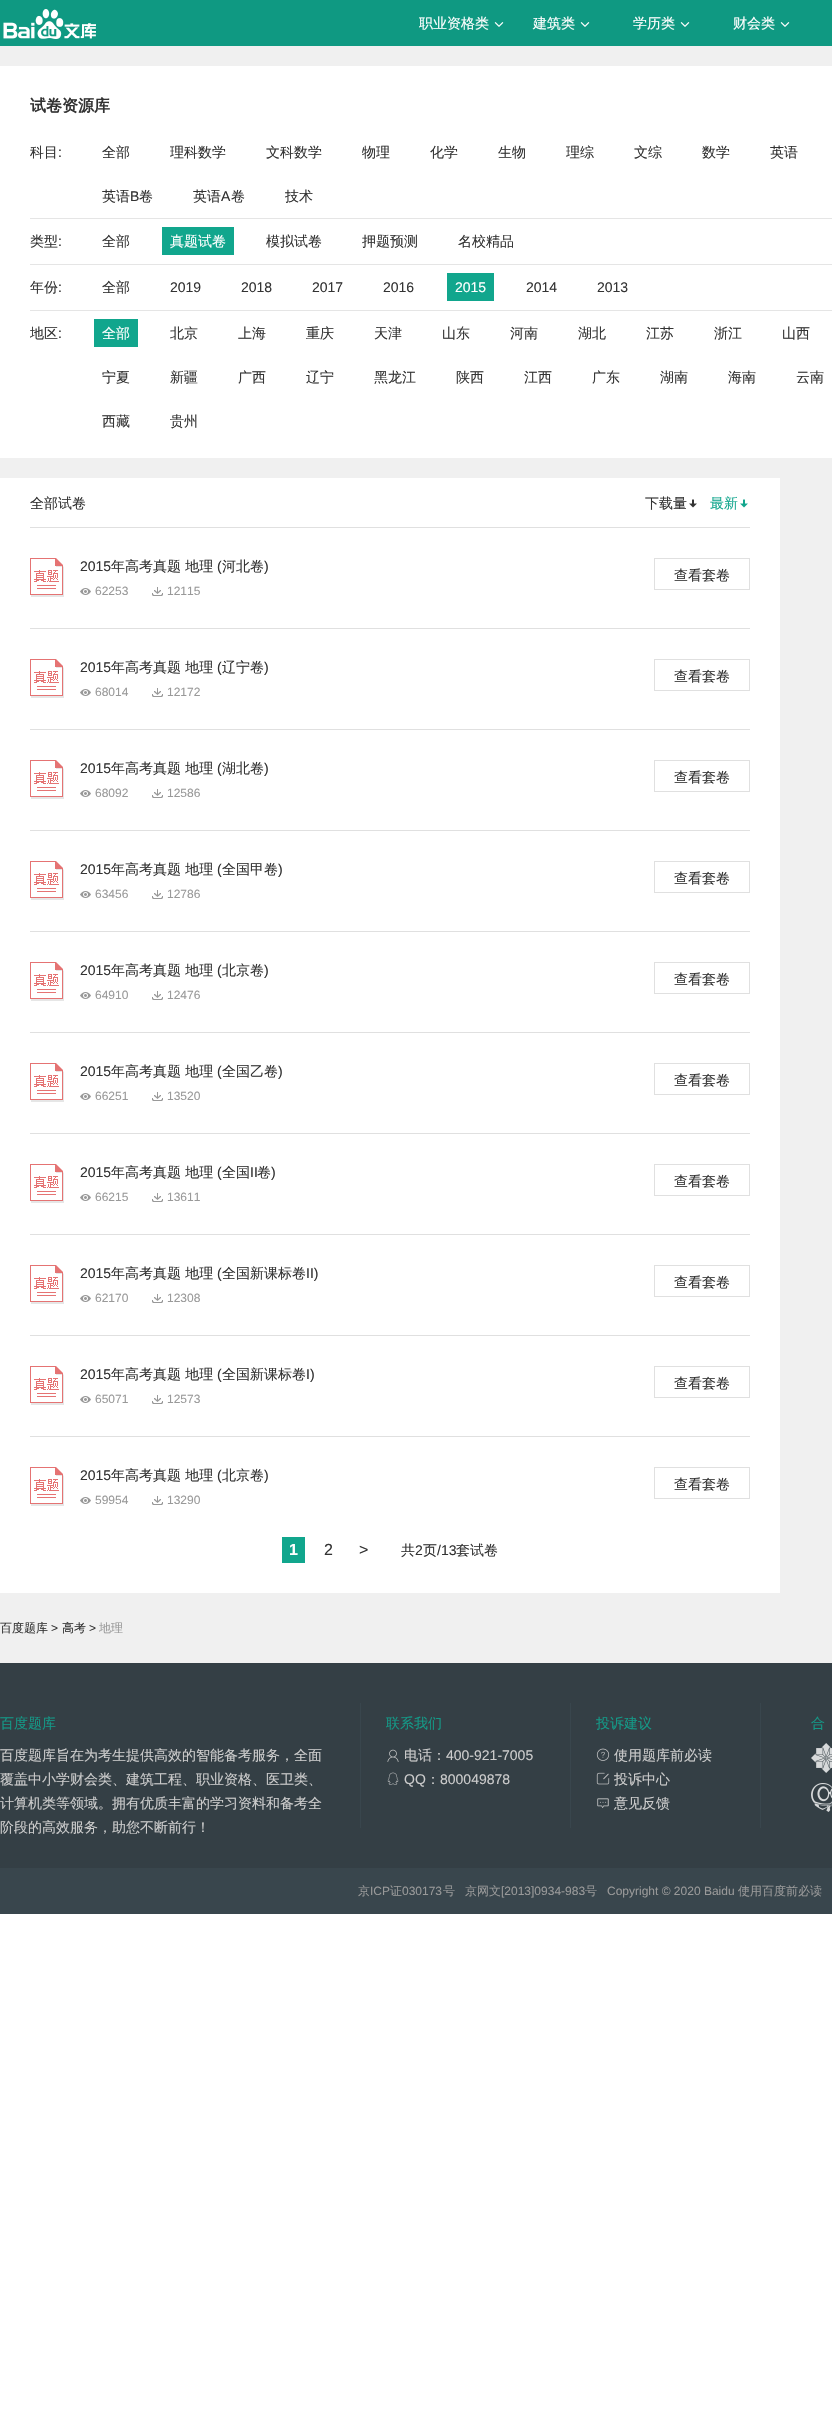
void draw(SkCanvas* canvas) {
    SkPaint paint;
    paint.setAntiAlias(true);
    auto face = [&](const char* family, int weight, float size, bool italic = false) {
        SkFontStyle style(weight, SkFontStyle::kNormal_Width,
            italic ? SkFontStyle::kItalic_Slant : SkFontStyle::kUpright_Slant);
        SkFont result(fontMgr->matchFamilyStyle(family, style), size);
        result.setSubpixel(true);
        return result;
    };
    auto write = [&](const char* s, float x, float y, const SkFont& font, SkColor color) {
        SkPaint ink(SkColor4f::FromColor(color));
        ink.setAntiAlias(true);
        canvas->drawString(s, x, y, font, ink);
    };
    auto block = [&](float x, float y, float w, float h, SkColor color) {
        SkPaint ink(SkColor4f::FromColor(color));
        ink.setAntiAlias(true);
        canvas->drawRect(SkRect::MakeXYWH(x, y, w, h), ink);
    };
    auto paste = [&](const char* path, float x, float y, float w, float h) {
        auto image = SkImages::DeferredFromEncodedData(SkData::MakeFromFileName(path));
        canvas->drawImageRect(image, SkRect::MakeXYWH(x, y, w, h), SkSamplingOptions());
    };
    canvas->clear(SK_ColorWHITE);
    block(0, 0, 832, 46, SkColorSetRGB(15, 153, 130));
    paste("pic1.png", 3, 9, 93, 30);
    auto kFont1 = face("WenQuanYi Zen Hei", 500, 14);
    write("职业资格类", 419, 28, kFont1, SK_ColorWHITE);
    paste("pic2.png", 494, 22, 10, 5);
    write("建筑类", 533, 28, kFont1, SK_ColorWHITE);
    paste("pic2.png", 580, 22, 10, 5);
    write("学历类", 633, 28, kFont1, SK_ColorWHITE);
    paste("pic2.png", 680, 22, 10, 5);
    write("财会类", 733, 28, kFont1, SK_ColorWHITE);
    paste("pic2.png", 780, 22, 10, 5);
    block(0, 46, 832, 1617, SkColorSetRGB(240, 240, 240));
    block(0, 66, 832, 392, SK_ColorWHITE);
    auto kFont2 = face("WenQuanYi Zen Hei", 700, 16);
    write("试卷资源库", 30, 111, kFont2, SkColorSetRGB(51, 51, 51));
    block(30, 218, 802, 1, SkColorSetRGB(229, 229, 229));
    write("科目", 30, 157, kFont1, SkColorSetRGB(51, 51, 51));
    auto kFont3 = face("Liberation Sans", 400, 14);
    write(":", 58, 157, kFont3, SkColorSetRGB(51, 51, 51));
    write("全部", 102, 157, kFont1, SkColorSetRGB(51, 51, 51));
    write("理科数学", 170, 157, kFont1, SkColorSetRGB(51, 51, 51));
    write("文科数学", 266, 157, kFont1, SkColorSetRGB(51, 51, 51));
    write("物理", 362, 157, kFont1, SkColorSetRGB(51, 51, 51));
    write("化学", 430, 157, kFont1, SkColorSetRGB(51, 51, 51));
    write("生物", 498, 157, kFont1, SkColorSetRGB(51, 51, 51));
    write("理综", 566, 157, kFont1, SkColorSetRGB(51, 51, 51));
    write("文综", 634, 157, kFont1, SkColorSetRGB(51, 51, 51));
    write("数学", 702, 157, kFont1, SkColorSetRGB(51, 51, 51));
    write("英语", 770, 157, kFont1, SkColorSetRGB(51, 51, 51));
    write("英语", 102, 201, kFont1, SkColorSetRGB(51, 51, 51));
    write("B", 130, 201, kFont3, SkColorSetRGB(51, 51, 51));
    write("卷", 139, 201, kFont1, SkColorSetRGB(51, 51, 51));
    write("英语", 193, 201, kFont1, SkColorSetRGB(51, 51, 51));
    write("A", 221, 201, kFont3, SkColorSetRGB(51, 51, 51));
    write("卷", 231, 201, kFont1, SkColorSetRGB(51, 51, 51));
    write("技术", 285, 201, kFont1, SkColorSetRGB(51, 51, 51));
    block(30, 264, 802, 1, SkColorSetRGB(229, 229, 229));
    write("类型", 30, 246, kFont1, SkColorSetRGB(51, 51, 51));
    write(":", 58, 246, kFont3, SkColorSetRGB(51, 51, 51));
    write("全部", 102, 246, kFont1, SkColorSetRGB(51, 51, 51));
    block(162, 227, 72, 28, SkColorSetRGB(17, 166, 141));
    write("真题试卷", 170, 246, kFont1, SK_ColorWHITE);
    write("模拟试卷", 266, 246, kFont1, SkColorSetRGB(51, 51, 51));
    write("押题预测", 362, 246, kFont1, SkColorSetRGB(51, 51, 51));
    write("名校精品", 458, 246, kFont1, SkColorSetRGB(51, 51, 51));
    block(30, 310, 802, 1, SkColorSetRGB(229, 229, 229));
    write("年份", 30, 292, kFont1, SkColorSetRGB(51, 51, 51));
    write(":", 58, 292, kFont3, SkColorSetRGB(51, 51, 51));
    write("全部", 102, 292, kFont1, SkColorSetRGB(51, 51, 51));
    write("2019", 170, 292, kFont3, SkColorSetRGB(51, 51, 51));
    write("2018", 241, 292, kFont3, SkColorSetRGB(51, 51, 51));
    write("2017", 312, 292, kFont3, SkColorSetRGB(51, 51, 51));
    write("2016", 383, 292, kFont3, SkColorSetRGB(51, 51, 51));
    block(447, 273, 47, 28, SkColorSetRGB(17, 166, 141));
    write("2015", 455, 292, kFont3, SK_ColorWHITE);
    write("2014", 526, 292, kFont3, SkColorSetRGB(51, 51, 51));
    write("2013", 597, 292, kFont3, SkColorSetRGB(51, 51, 51));
    write("地区", 30, 338, kFont1, SkColorSetRGB(51, 51, 51));
    write(":", 58, 338, kFont3, SkColorSetRGB(51, 51, 51));
    block(94, 319, 44, 28, SkColorSetRGB(17, 166, 141));
    write("全部", 102, 338, kFont1, SK_ColorWHITE);
    write("北京", 170, 338, kFont1, SkColorSetRGB(51, 51, 51));
    write("上海", 238, 338, kFont1, SkColorSetRGB(51, 51, 51));
    write("重庆", 306, 338, kFont1, SkColorSetRGB(51, 51, 51));
    write("天津", 374, 338, kFont1, SkColorSetRGB(51, 51, 51));
    write("山东", 442, 338, kFont1, SkColorSetRGB(51, 51, 51));
    write("河南", 510, 338, kFont1, SkColorSetRGB(51, 51, 51));
    write("湖北", 578, 338, kFont1, SkColorSetRGB(51, 51, 51));
    write("江苏", 646, 338, kFont1, SkColorSetRGB(51, 51, 51));
    write("浙江", 714, 338, kFont1, SkColorSetRGB(51, 51, 51));
    write("山西", 782, 338, kFont1, SkColorSetRGB(51, 51, 51));
    write("宁夏", 102, 382, kFont1, SkColorSetRGB(51, 51, 51));
    write("新疆", 170, 382, kFont1, SkColorSetRGB(51, 51, 51));
    write("广西", 238, 382, kFont1, SkColorSetRGB(51, 51, 51));
    write("辽宁", 306, 382, kFont1, SkColorSetRGB(51, 51, 51));
    write("黑龙江", 374, 382, kFont1, SkColorSetRGB(51, 51, 51));
    write("陕西", 456, 382, kFont1, SkColorSetRGB(51, 51, 51));
    write("江西", 524, 382, kFont1, SkColorSetRGB(51, 51, 51));
    write("广东", 592, 382, kFont1, SkColorSetRGB(51, 51, 51));
    write("湖南", 660, 382, kFont1, SkColorSetRGB(51, 51, 51));
    write("海南", 728, 382, kFont1, SkColorSetRGB(51, 51, 51));
    write("云南", 796, 382, kFont1, SkColorSetRGB(51, 51, 51));
    write("西藏", 102, 426, kFont1, SkColorSetRGB(51, 51, 51));
    write("贵州", 170, 426, kFont1, SkColorSetRGB(51, 51, 51));
    block(0, 478, 780, 1115, SK_ColorWHITE);
    block(30, 527, 720, 1, SkColorSetRGB(224, 224, 224));
    write("全部试卷", 30, 508, kFont1, SkColorSetRGB(51, 51, 51));
    write("下载量", 645, 508, kFont1, SkColorSetRGB(51, 51, 51));
    paste("pic3.png", 689, 499, 8, 9);
    write("最新", 710, 508, kFont1, SkColorSetRGB(17, 166, 141));
    paste("pic4.png", 740, 499, 8, 9);
    paste("pic5.png", 30, 558, 34, 39);
    write("2015", 80, 571, kFont3, SkColorSetRGB(51, 51, 51));
    write("年高考真题 地理", 111, 571, kFont1, SkColorSetRGB(51, 51, 51));
    write("(", 217, 571, kFont3, SkColorSetRGB(51, 51, 51));
    write("河北卷", 222, 571, kFont1, SkColorSetRGB(51, 51, 51));
    write(")", 264, 571, kFont3, SkColorSetRGB(51, 51, 51));
    paste("pic6.png", 80, 588, 11, 7);
    auto kFont4 = face("Liberation Sans", 400, 12);
    write("62253", 95, 595, kFont4, SkColorSetRGB(153, 153, 153));
    paste("pic7.png", 152, 587, 11, 9);
    write("12115", 167, 595, kFont4, SkColorSetRGB(153, 153, 153));
    paint.setStyle(SkPaint::kStroke_Style);
    paint.setStrokeWidth(1);
    paint.setColor(SkColorSetRGB(224, 224, 224));
    canvas->drawRect(SkRect::MakeXYWH(654.5f, 558.5f, 95, 31), paint);
    write("查看套卷", 674, 580, kFont1, SkColorSetRGB(51, 51, 51));
    block(30, 628, 720, 1, SkColorSetRGB(224, 224, 224));
    paste("pic5.png", 30, 659, 34, 39);
    write("2015", 80, 672, kFont3, SkColorSetRGB(51, 51, 51));
    write("年高考真题 地理", 111, 672, kFont1, SkColorSetRGB(51, 51, 51));
    write("(", 217, 672, kFont3, SkColorSetRGB(51, 51, 51));
    write("辽宁卷", 222, 672, kFont1, SkColorSetRGB(51, 51, 51));
    write(")", 264, 672, kFont3, SkColorSetRGB(51, 51, 51));
    paste("pic6.png", 80, 689, 11, 7);
    write("68014", 95, 696, kFont4, SkColorSetRGB(153, 153, 153));
    paste("pic7.png", 152, 688, 11, 9);
    write("12172", 167, 696, kFont4, SkColorSetRGB(153, 153, 153));
    canvas->drawRect(SkRect::MakeXYWH(654.5f, 659.5f, 95, 31), paint);
    write("查看套卷", 674, 681, kFont1, SkColorSetRGB(51, 51, 51));
    block(30, 729, 720, 1, SkColorSetRGB(224, 224, 224));
    paste("pic5.png", 30, 760, 34, 39);
    write("2015", 80, 773, kFont3, SkColorSetRGB(51, 51, 51));
    write("年高考真题 地理", 111, 773, kFont1, SkColorSetRGB(51, 51, 51));
    write("(", 217, 773, kFont3, SkColorSetRGB(51, 51, 51));
    write("湖北卷", 222, 773, kFont1, SkColorSetRGB(51, 51, 51));
    write(")", 264, 773, kFont3, SkColorSetRGB(51, 51, 51));
    paste("pic6.png", 80, 790, 11, 7);
    write("68092", 95, 797, kFont4, SkColorSetRGB(153, 153, 153));
    paste("pic7.png", 152, 789, 11, 9);
    write("12586", 167, 797, kFont4, SkColorSetRGB(153, 153, 153));
    canvas->drawRect(SkRect::MakeXYWH(654.5f, 760.5f, 95, 31), paint);
    write("查看套卷", 674, 782, kFont1, SkColorSetRGB(51, 51, 51));
    block(30, 830, 720, 1, SkColorSetRGB(224, 224, 224));
    paste("pic5.png", 30, 861, 34, 39);
    write("2015", 80, 874, kFont3, SkColorSetRGB(51, 51, 51));
    write("年高考真题 地理", 111, 874, kFont1, SkColorSetRGB(51, 51, 51));
    write("(", 217, 874, kFont3, SkColorSetRGB(51, 51, 51));
    write("全国甲卷", 222, 874, kFont1, SkColorSetRGB(51, 51, 51));
    write(")", 278, 874, kFont3, SkColorSetRGB(51, 51, 51));
    paste("pic6.png", 80, 891, 11, 7);
    write("63456", 95, 898, kFont4, SkColorSetRGB(153, 153, 153));
    paste("pic7.png", 152, 890, 11, 9);
    write("12786", 167, 898, kFont4, SkColorSetRGB(153, 153, 153));
    canvas->drawRect(SkRect::MakeXYWH(654.5f, 861.5f, 95, 31), paint);
    write("查看套卷", 674, 883, kFont1, SkColorSetRGB(51, 51, 51));
    block(30, 931, 720, 1, SkColorSetRGB(224, 224, 224));
    paste("pic5.png", 30, 962, 34, 39);
    write("2015", 80, 975, kFont3, SkColorSetRGB(51, 51, 51));
    write("年高考真题 地理", 111, 975, kFont1, SkColorSetRGB(51, 51, 51));
    write("(", 217, 975, kFont3, SkColorSetRGB(51, 51, 51));
    write("北京卷", 222, 975, kFont1, SkColorSetRGB(51, 51, 51));
    write(")", 264, 975, kFont3, SkColorSetRGB(51, 51, 51));
    paste("pic6.png", 80, 992, 11, 7);
    write("64910", 95, 999, kFont4, SkColorSetRGB(153, 153, 153));
    paste("pic7.png", 152, 991, 11, 9);
    write("12476", 167, 999, kFont4, SkColorSetRGB(153, 153, 153));
    canvas->drawRect(SkRect::MakeXYWH(654.5f, 962.5f, 95, 31), paint);
    write("查看套卷", 674, 984, kFont1, SkColorSetRGB(51, 51, 51));
    block(30, 1032, 720, 1, SkColorSetRGB(224, 224, 224));
    paste("pic5.png", 30, 1063, 34, 39);
    write("2015", 80, 1076, kFont3, SkColorSetRGB(51, 51, 51));
    write("年高考真题 地理", 111, 1076, kFont1, SkColorSetRGB(51, 51, 51));
    write("(", 217, 1076, kFont3, SkColorSetRGB(51, 51, 51));
    write("全国乙卷", 222, 1076, kFont1, SkColorSetRGB(51, 51, 51));
    write(")", 278, 1076, kFont3, SkColorSetRGB(51, 51, 51));
    paste("pic6.png", 80, 1093, 11, 7);
    write("66251", 95, 1100, kFont4, SkColorSetRGB(153, 153, 153));
    paste("pic7.png", 152, 1092, 11, 9);
    write("13520", 167, 1100, kFont4, SkColorSetRGB(153, 153, 153));
    canvas->drawRect(SkRect::MakeXYWH(654.5f, 1063.5f, 95, 31), paint);
    write("查看套卷", 674, 1085, kFont1, SkColorSetRGB(51, 51, 51));
    block(30, 1133, 720, 1, SkColorSetRGB(224, 224, 224));
    paste("pic5.png", 30, 1164, 34, 39);
    write("2015", 80, 1177, kFont3, SkColorSetRGB(51, 51, 51));
    write("年高考真题 地理", 111, 1177, kFont1, SkColorSetRGB(51, 51, 51));
    write("(", 217, 1177, kFont3, SkColorSetRGB(51, 51, 51));
    write("全国", 222, 1177, kFont1, SkColorSetRGB(51, 51, 51));
    write("II", 250, 1177, kFont3, SkColorSetRGB(51, 51, 51));
    write("卷", 257, 1177, kFont1, SkColorSetRGB(51, 51, 51));
    write(")", 271, 1177, kFont3, SkColorSetRGB(51, 51, 51));
    paste("pic6.png", 80, 1194, 11, 7);
    write("66215", 95, 1201, kFont4, SkColorSetRGB(153, 153, 153));
    paste("pic7.png", 152, 1193, 11, 9);
    write("13611", 167, 1201, kFont4, SkColorSetRGB(153, 153, 153));
    canvas->drawRect(SkRect::MakeXYWH(654.5f, 1164.5f, 95, 31), paint);
    write("查看套卷", 674, 1186, kFont1, SkColorSetRGB(51, 51, 51));
    block(30, 1234, 720, 1, SkColorSetRGB(224, 224, 224));
    paste("pic5.png", 30, 1265, 34, 39);
    write("2015", 80, 1278, kFont3, SkColorSetRGB(51, 51, 51));
    write("年高考真题 地理", 111, 1278, kFont1, SkColorSetRGB(51, 51, 51));
    write("(", 217, 1278, kFont3, SkColorSetRGB(51, 51, 51));
    write("全国新课标卷", 222, 1278, kFont1, SkColorSetRGB(51, 51, 51));
    write("II)", 306, 1278, kFont3, SkColorSetRGB(51, 51, 51));
    paste("pic6.png", 80, 1295, 11, 7);
    write("62170", 95, 1302, kFont4, SkColorSetRGB(153, 153, 153));
    paste("pic7.png", 152, 1294, 11, 9);
    write("12308", 167, 1302, kFont4, SkColorSetRGB(153, 153, 153));
    canvas->drawRect(SkRect::MakeXYWH(654.5f, 1265.5f, 95, 31), paint);
    write("查看套卷", 674, 1287, kFont1, SkColorSetRGB(51, 51, 51));
    block(30, 1335, 720, 1, SkColorSetRGB(224, 224, 224));
    paste("pic5.png", 30, 1366, 34, 39);
    write("2015", 80, 1379, kFont3, SkColorSetRGB(51, 51, 51));
    write("年高考真题 地理", 111, 1379, kFont1, SkColorSetRGB(51, 51, 51));
    write("(", 217, 1379, kFont3, SkColorSetRGB(51, 51, 51));
    write("全国新课标卷", 222, 1379, kFont1, SkColorSetRGB(51, 51, 51));
    write("I)", 306, 1379, kFont3, SkColorSetRGB(51, 51, 51));
    paste("pic6.png", 80, 1396, 11, 7);
    write("65071", 95, 1403, kFont4, SkColorSetRGB(153, 153, 153));
    paste("pic7.png", 152, 1395, 11, 9);
    write("12573", 167, 1403, kFont4, SkColorSetRGB(153, 153, 153));
    canvas->drawRect(SkRect::MakeXYWH(654.5f, 1366.5f, 95, 31), paint);
    write("查看套卷", 674, 1388, kFont1, SkColorSetRGB(51, 51, 51));
    block(30, 1436, 720, 1, SkColorSetRGB(224, 224, 224));
    paste("pic5.png", 30, 1467, 34, 39);
    write("2015", 80, 1480, kFont3, SkColorSetRGB(51, 51, 51));
    write("年高考真题 地理", 111, 1480, kFont1, SkColorSetRGB(51, 51, 51));
    write("(", 217, 1480, kFont3, SkColorSetRGB(51, 51, 51));
    write("北京卷", 222, 1480, kFont1, SkColorSetRGB(51, 51, 51));
    write(")", 264, 1480, kFont3, SkColorSetRGB(51, 51, 51));
    paste("pic6.png", 80, 1497, 11, 7);
    write("59954", 95, 1504, kFont4, SkColorSetRGB(153, 153, 153));
    paste("pic7.png", 152, 1496, 11, 9);
    write("13290", 167, 1504, kFont4, SkColorSetRGB(153, 153, 153));
    canvas->drawRect(SkRect::MakeXYWH(654.5f, 1467.5f, 95, 31), paint);
    write("查看套卷", 674, 1489, kFont1, SkColorSetRGB(51, 51, 51));
    block(282, 1537, 23, 26, SkColorSetRGB(17, 166, 141));
    auto kFont5 = face("Liberation Sans", 700, 16);
    write("1", 289, 1555, kFont5, SK_ColorWHITE);
    auto kFont6 = face("Liberation Sans", 400, 16);
    write("2", 324, 1555, kFont6, SkColorSetRGB(51, 51, 51));
    write(">", 359, 1555, kFont6, SkColorSetRGB(51, 51, 51));
    write("共", 401, 1555, kFont1, SkColorSetRGB(51, 51, 51));
    write("2", 415, 1555, kFont3, SkColorSetRGB(51, 51, 51));
    write("页", 423, 1555, kFont1, SkColorSetRGB(51, 51, 51));
    write("/13", 437, 1555, kFont3, SkColorSetRGB(51, 51, 51));
    write("套试卷", 456, 1555, kFont1, SkColorSetRGB(51, 51, 51));
    auto kFont7 = face("WenQuanYi Zen Hei", 500, 12);
    write("百度题库", 0, 1632, kFont7, SkColorSetRGB(51, 51, 51));
    write(">", 51, 1632, kFont4, SkColorSetRGB(51, 51, 51));
    write("高考", 62, 1632, kFont7, SkColorSetRGB(51, 51, 51));
    write(">", 89, 1632, kFont4, SkColorSetRGB(51, 51, 51));
    write("地理", 99, 1632, kFont7, SkColorSetRGB(153, 153, 153));
    block(0, 1663, 832, 205, SkColorSetRGB(52, 63, 69));
    block(360, 1703, 1, 125, SkColorSetRGB(57, 70, 77));
    write("百度题库", 0, 1728, kFont1, SkColorSetRGB(20, 153, 135));
    write("百度题库旨在为考生提供高效的智能备考服务，全面", 0, 1760, kFont1, SkColorSetRGB(204, 204, 204));
    write("覆盖中小学财会类、建筑工程、职业资格、医卫类、", 0, 1784, kFont1, SkColorSetRGB(204, 204, 204));
    write("计算机类等领域。拥有优质丰富的学习资料和备考全", 0, 1808, kFont1, SkColorSetRGB(204, 204, 204));
    write("阶段的高效服务，助您不断前行！", 0, 1832, kFont1, SkColorSetRGB(204, 204, 204));
    block(570, 1703, 1, 125, SkColorSetRGB(57, 70, 77));
    write("联系我们", 386, 1728, kFont1, SkColorSetRGB(20, 153, 135));
    paste("pic8.png", 387, 1749, 12, 13);
    write("电话：", 404, 1760, kFont1, SkColorSetRGB(204, 204, 204));
    write("400-921-7005", 446, 1760, kFont3, SkColorSetRGB(204, 204, 204));
    paste("pic9.png", 387, 1772, 12, 13);
    write("QQ", 404, 1784, kFont3, SkColorSetRGB(204, 204, 204));
    write("：", 426, 1784, kFont1, SkColorSetRGB(204, 204, 204));
    write("800049878", 440, 1784, kFont3, SkColorSetRGB(204, 204, 204));
    block(760, 1703, 1, 125, SkColorSetRGB(57, 70, 77));
    write("投诉建议", 596, 1728, kFont1, SkColorSetRGB(20, 153, 135));
    paste("pic10.png", 596, 1748, 14, 13);
    write("使用题库前必读", 614, 1760, kFont1, SkColorSetRGB(204, 204, 204));
    paste("pic11.png", 596, 1772, 14, 13);
    write("投诉中心", 614, 1784, kFont1, SkColorSetRGB(204, 204, 204));
    paste("pic12.png", 597, 1798, 12, 10);
    write("意见反馈", 614, 1808, kFont1, SkColorSetRGB(204, 204, 204));
    write("合", 811, 1728, kFont1, SkColorSetRGB(20, 153, 135));
    paste("pic13.png", 811, 1743, 21, 30);
    paste("pic14.png", 811, 1783, 21, 29);
    block(0, 1868, 832, 46, SkColorSetRGB(57, 70, 77));
    write("京", 358, 1895, kFont7, SkColorSetRGB(153, 153, 153));
    write("ICP", 370, 1895, kFont4, SkColorSetRGB(153, 153, 153));
    write("证", 390, 1895, kFont7, SkColorSetRGB(153, 153, 153));
    write("030173", 402, 1895, kFont4, SkColorSetRGB(153, 153, 153));
    write("号", 443, 1895, kFont7, SkColorSetRGB(153, 153, 153));
    write("京网文", 465, 1895, kFont7, SkColorSetRGB(153, 153, 153));
    write("[2013]0934-983", 501, 1895, kFont4, SkColorSetRGB(153, 153, 153));
    write("号", 585, 1895, kFont7, SkColorSetRGB(153, 153, 153));
    write("Copyright © 2020 Baidu", 607, 1895, kFont4, SkColorSetRGB(153, 153, 153));
    write("使用百度前必读", 738, 1895, kFont7, SkColorSetRGB(153, 153, 153));
}
